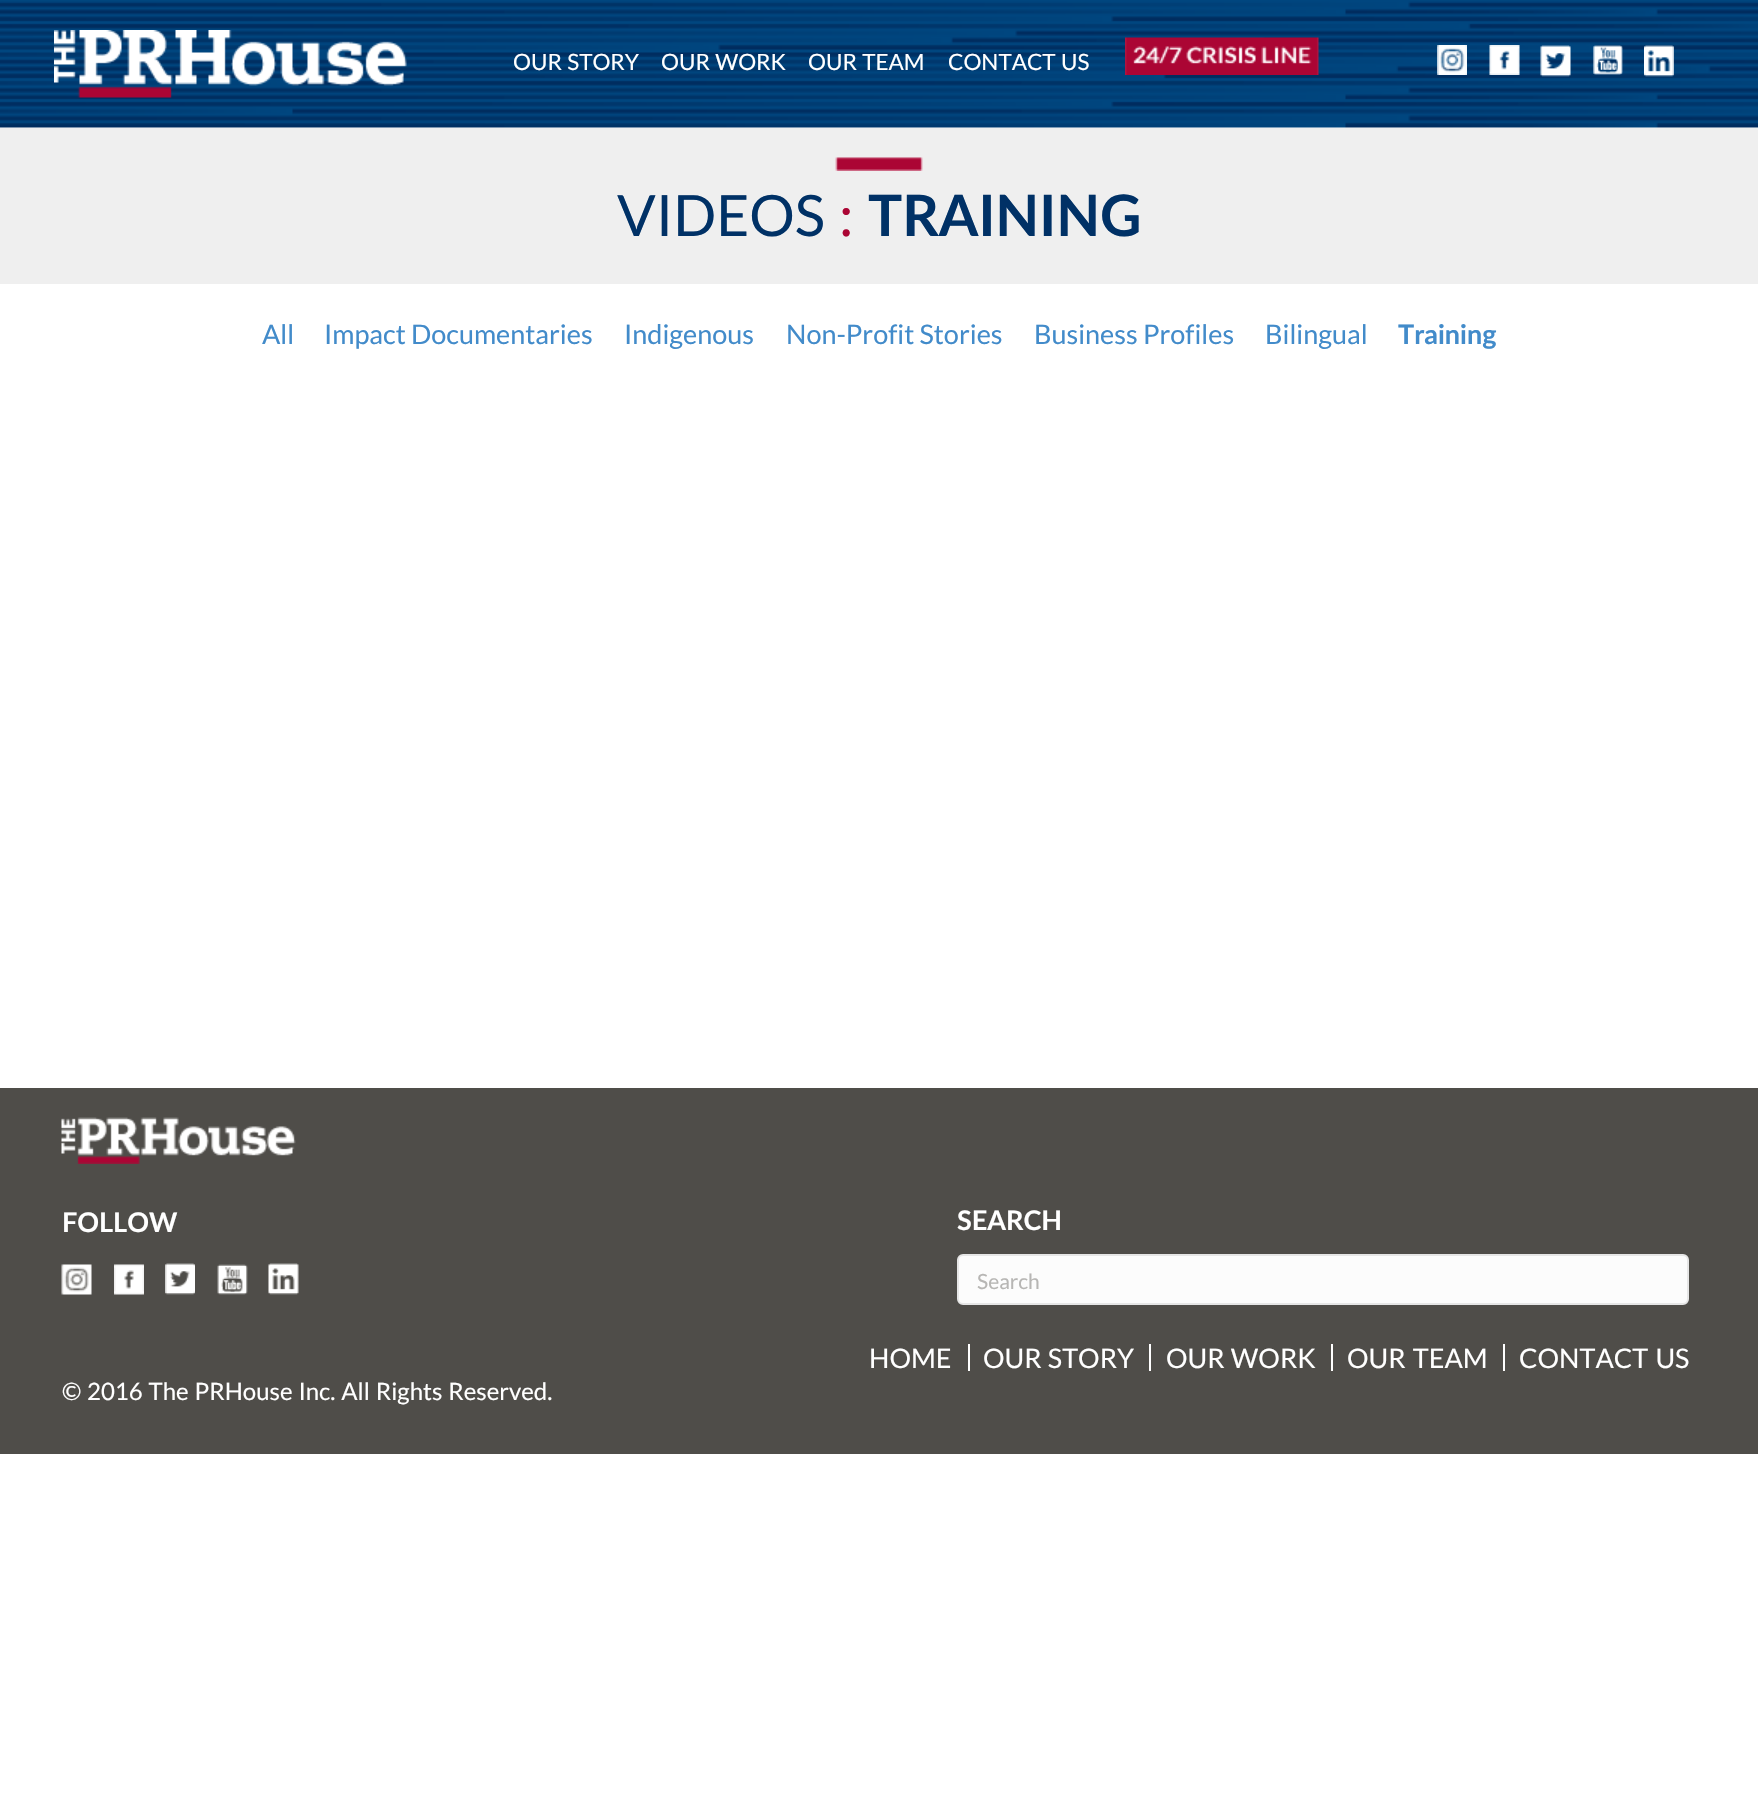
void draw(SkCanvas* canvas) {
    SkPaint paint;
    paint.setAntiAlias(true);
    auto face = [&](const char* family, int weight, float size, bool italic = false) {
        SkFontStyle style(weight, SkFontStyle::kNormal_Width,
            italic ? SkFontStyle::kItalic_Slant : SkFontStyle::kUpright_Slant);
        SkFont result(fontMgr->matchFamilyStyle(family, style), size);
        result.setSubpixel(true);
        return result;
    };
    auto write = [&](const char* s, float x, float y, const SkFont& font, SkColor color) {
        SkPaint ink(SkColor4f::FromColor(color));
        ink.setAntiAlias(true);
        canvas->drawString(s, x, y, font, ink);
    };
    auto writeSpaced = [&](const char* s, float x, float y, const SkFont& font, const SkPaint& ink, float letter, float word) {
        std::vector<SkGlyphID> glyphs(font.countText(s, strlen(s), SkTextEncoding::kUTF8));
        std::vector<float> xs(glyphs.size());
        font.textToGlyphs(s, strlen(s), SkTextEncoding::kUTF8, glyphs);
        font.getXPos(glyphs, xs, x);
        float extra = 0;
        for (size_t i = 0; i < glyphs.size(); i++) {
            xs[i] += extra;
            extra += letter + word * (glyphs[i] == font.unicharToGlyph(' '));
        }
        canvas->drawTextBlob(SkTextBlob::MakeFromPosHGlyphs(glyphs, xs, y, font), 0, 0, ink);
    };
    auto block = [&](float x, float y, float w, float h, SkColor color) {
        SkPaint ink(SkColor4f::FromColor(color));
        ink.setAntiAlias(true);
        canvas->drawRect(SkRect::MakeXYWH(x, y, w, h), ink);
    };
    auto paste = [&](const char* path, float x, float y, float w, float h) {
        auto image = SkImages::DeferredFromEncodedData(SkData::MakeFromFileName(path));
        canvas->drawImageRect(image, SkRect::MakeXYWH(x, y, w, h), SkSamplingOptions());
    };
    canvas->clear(SK_ColorWHITE);
    paste("pic1.png", 0, 0, 1758, 128);
    paste("pic2.png", 54, 30, 353, 68);
    auto kFont1 = face("Lato", 400, 22.5f);
    paint.setColor(SK_ColorWHITE);
    writeSpaced("OUR STORY", 513, 70, kFont1, paint, 0, 1);
    writeSpaced("OUR WORK", 661, 70, kFont1, paint, 0, 1);
    writeSpaced("OUR TEAM", 808, 70, kFont1, paint, 0, 1);
    writeSpaced("CONTACT US", 948, 70, kFont1, paint, 0, 1);
    paste("pic3.png", 1125, 37, 194, 38);
    paste("pic4.png", 1437, 45, 30, 30);
    paste("pic5.png", 1489, 45, 31, 30);
    paste("pic6.png", 1540, 45, 31, 32);
    paste("pic7.png", 1593, 45, 30, 30);
    paste("pic8.png", 1644, 45, 30, 32);
    block(0, 128, 1758, 156, SkColorSetRGB(239, 239, 239));
    paste("pic9.png", 835, 157, 88, 14);
    auto kFont2 = face("Lato", 400, 57);
    write("VIDEOS", 617, 236, kFont2, SkColorSetRGB(0, 49, 102));
    write(":", 839, 236, kFont2, SkColorSetRGB(171, 5, 52));
    auto kFont3 = face("Lato", 700, 57);
    write("TRAINING", 868, 236, kFont3, SkColorSetRGB(0, 49, 102));
    auto kFont4 = face("Lato", 400, 27);
    write("All", 262, 344, kFont4, SkColorSetRGB(66, 139, 202));
    write("Impact Documentaries", 324, 344, kFont4, SkColorSetRGB(66, 139, 202));
    write("Indigenous", 624, 344, kFont4, SkColorSetRGB(66, 139, 202));
    write("Non-Profit Stories", 786, 344, kFont4, SkColorSetRGB(66, 139, 202));
    write("Business Profiles", 1034, 344, kFont4, SkColorSetRGB(66, 139, 202));
    write("Bilingual", 1265, 344, kFont4, SkColorSetRGB(66, 139, 202));
    auto kFont5 = face("Lato", 700, 27);
    write("Training", 1398, 344, kFont5, SkColorSetRGB(66, 139, 202));
    block(0, 1088, 1758, 366, SkColorSetRGB(79, 77, 73));
    paste("pic10.png", 61, 1117, 235, 47);
    write("FOLLOW", 62, 1232, kFont5, SK_ColorWHITE);
    paste("pic11.png", 61, 1264, 31, 31);
    paste("pic12.png", 114, 1264, 30, 31);
    paste("pic13.png", 165, 1263, 30, 32);
    paste("pic14.png", 217, 1264, 31, 31);
    paste("pic15.png", 268, 1263, 31, 32);
    auto kFont6 = face("Lato", 400, 24);
    writeSpaced("© 2016 The PRHouse Inc. All Rights Reserved.", 62, 1400, kFont6, paint, 0, 1.25f);
    write("SEARCH", 957, 1230, kFont5, SK_ColorWHITE);
    paint.setColor(SkColorSetRGB(252, 252, 252));
    canvas->drawRoundRect(SkRect::MakeXYWH(958, 1255, 730, 49), 5, 5, paint);
    paint.setStyle(SkPaint::kStroke_Style);
    paint.setStrokeWidth(2);
    paint.setColor(SkColorSetRGB(230, 230, 230));
    canvas->drawRoundRect(SkRect::MakeXYWH(958, 1255, 730, 49), 5, 5, paint);
    auto kFont7 = face("Lato", 400, 21);
    write("Search", 977, 1289, kFont7, SkColorSetRGB(183, 182, 180));
    write("HOME", 869, 1368, kFont4, SK_ColorWHITE);
    block(968, 1344, 2, 27, SK_ColorWHITE);
    paint.setStyle(SkPaint::kFill_Style);
    paint.setColor(SK_ColorWHITE);
    writeSpaced("OUR STORY", 983, 1368, kFont4, paint, 0, 1);
    block(1149, 1344, 2, 27, SK_ColorWHITE);
    writeSpaced("OUR WORK", 1166, 1368, kFont4, paint, 0, 1);
    block(1331, 1344, 2, 27, SK_ColorWHITE);
    writeSpaced("OUR TEAM", 1347, 1368, kFont4, paint, 0, 2);
    block(1503, 1344, 2, 27, SK_ColorWHITE);
    writeSpaced("CONTACT US", 1519, 1368, kFont4, paint, 0, 2);
}
